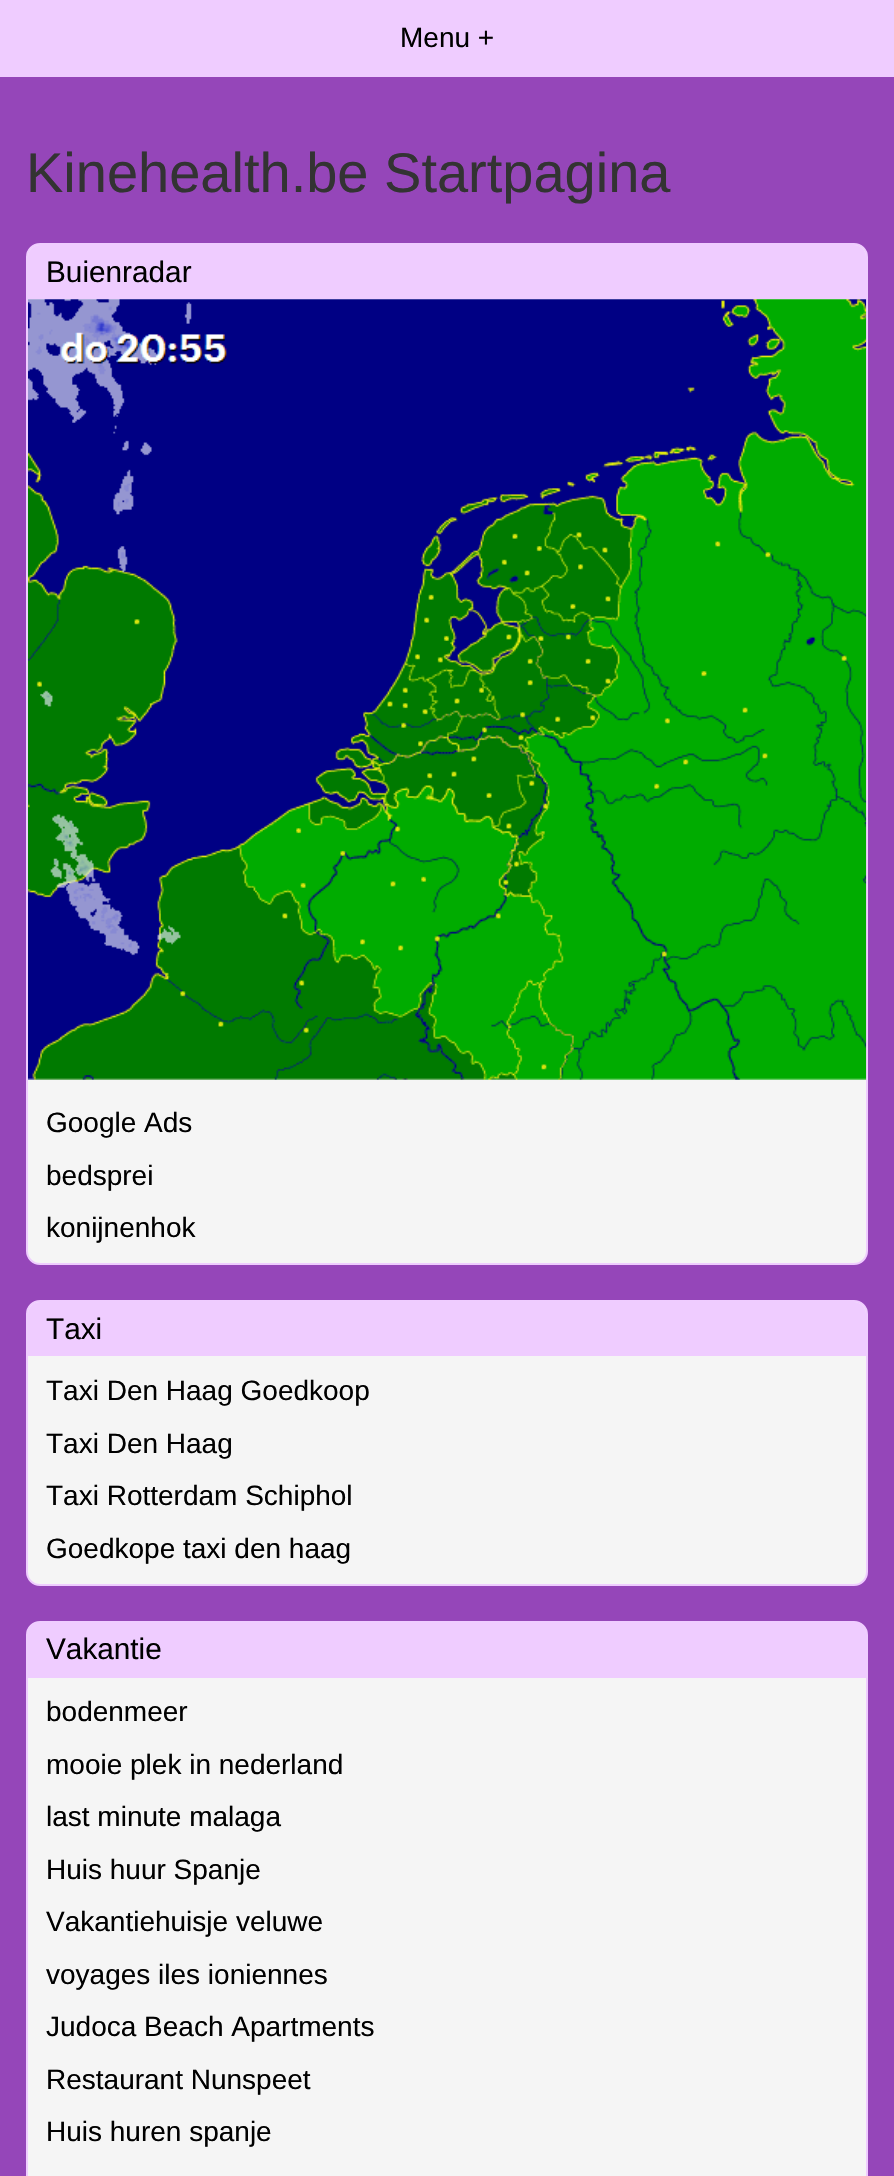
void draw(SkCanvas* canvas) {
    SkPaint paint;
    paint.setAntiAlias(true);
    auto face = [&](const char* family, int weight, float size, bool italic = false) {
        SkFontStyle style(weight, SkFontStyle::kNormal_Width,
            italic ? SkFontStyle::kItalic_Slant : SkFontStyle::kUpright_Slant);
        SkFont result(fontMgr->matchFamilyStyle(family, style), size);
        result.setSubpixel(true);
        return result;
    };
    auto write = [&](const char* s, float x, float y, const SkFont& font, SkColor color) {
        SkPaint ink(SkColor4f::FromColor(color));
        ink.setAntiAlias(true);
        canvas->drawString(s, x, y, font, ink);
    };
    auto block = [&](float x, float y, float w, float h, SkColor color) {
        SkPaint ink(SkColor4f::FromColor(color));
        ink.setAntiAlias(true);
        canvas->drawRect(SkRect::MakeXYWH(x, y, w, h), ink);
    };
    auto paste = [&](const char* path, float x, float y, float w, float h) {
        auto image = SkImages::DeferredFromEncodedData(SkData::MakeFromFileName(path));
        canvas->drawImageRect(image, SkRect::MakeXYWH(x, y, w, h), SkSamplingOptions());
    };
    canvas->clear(SkColorSetRGB(239, 204, 255));
    auto kFont1 = face("Liberation Sans", 400, 28);
    write("Menu +", 400, 47, kFont1, SK_ColorBLACK);
    block(0, 77, 894, 2099, SkColorSetRGB(149, 70, 185));
    auto kFont2 = face("Liberation Sans", 400, 56);
    write("Kinehealth.be Startpagina", 26, 192, kFont2, SkColorSetRGB(51, 51, 51));
    paint.setColor(SkColorSetRGB(245, 245, 245));
    canvas->drawRoundRect(SkRect::MakeXYWH(27, 244, 840, 1020), 13, 13, paint);
    paint.setStyle(SkPaint::kStroke_Style);
    paint.setStrokeWidth(2);
    paint.setColor(SkColorSetRGB(239, 204, 255));
    canvas->drawRoundRect(SkRect::MakeXYWH(27, 244, 840, 1020), 13, 13, paint);
    paint.setStyle(SkPaint::kFill_Style);
    canvas->drawPath(SkPathBuilder().moveTo(40, 245).lineTo(854, 245).cubicTo(860.5f, 245, 866, 250.5f, 866, 257).lineTo(866, 299).lineTo(28, 299).lineTo(28, 257).cubicTo(28, 250.5f, 33.5f, 245, 40, 245).close().detach(), paint);
    auto kFont3 = face("Liberation Sans", 400, 29.75f);
    write("Buienradar", 46, 282, kFont3, SK_ColorBLACK);
    paste("pic1.png", 28, 299, 839, 781);
    write("Google Ads", 46, 1132, kFont1, SK_ColorBLACK);
    write("bedsprei", 46, 1185, kFont1, SK_ColorBLACK);
    write("konijnenhok", 46, 1237, kFont1, SK_ColorBLACK);
    paint.setColor(SkColorSetRGB(245, 245, 245));
    canvas->drawRoundRect(SkRect::MakeXYWH(27, 1301, 840, 284), 13, 13, paint);
    paint.setStyle(SkPaint::kStroke_Style);
    paint.setColor(SkColorSetRGB(239, 204, 255));
    canvas->drawRoundRect(SkRect::MakeXYWH(27, 1301, 840, 284), 13, 13, paint);
    paint.setStyle(SkPaint::kFill_Style);
    canvas->drawPath(SkPathBuilder().moveTo(40, 1302).lineTo(854, 1302).cubicTo(860.5f, 1302, 866, 1307.5f, 866, 1314).lineTo(866, 1356).lineTo(28, 1356).lineTo(28, 1314).cubicTo(28, 1307.5f, 33.5f, 1302, 40, 1302).close().detach(), paint);
    write("Taxi", 46, 1339, kFont3, SK_ColorBLACK);
    write("Taxi Den Haag Goedkoop", 46, 1400, kFont1, SK_ColorBLACK);
    write("Taxi Den Haag", 46, 1453, kFont1, SK_ColorBLACK);
    write("Taxi Rotterdam Schiphol", 46, 1505, kFont1, SK_ColorBLACK);
    write("Goedkope taxi den haag", 46, 1558, kFont1, SK_ColorBLACK);
    paint.setColor(SkColorSetRGB(245, 245, 245));
    canvas->drawRoundRect(SkRect::MakeXYWH(27, 1622, 840, 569), 13, 13, paint);
    paint.setStyle(SkPaint::kStroke_Style);
    paint.setColor(SkColorSetRGB(239, 204, 255));
    canvas->drawRoundRect(SkRect::MakeXYWH(27, 1622, 840, 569), 13, 13, paint);
    paint.setStyle(SkPaint::kFill_Style);
    canvas->drawPath(SkPathBuilder().moveTo(40, 1622).lineTo(854, 1622).cubicTo(860.5f, 1622, 866, 1627.5f, 866, 1634).lineTo(866, 1678).lineTo(28, 1678).lineTo(28, 1634).cubicTo(28, 1627.5f, 33.5f, 1622, 40, 1622).close().detach(), paint);
    write("Vakantie", 46, 1659, kFont3, SK_ColorBLACK);
    write("bodenmeer", 46, 1721, kFont1, SK_ColorBLACK);
    write("mooie plek in nederland", 46, 1774, kFont1, SK_ColorBLACK);
    write("last minute malaga", 46, 1826, kFont1, SK_ColorBLACK);
    write("Huis huur Spanje", 46, 1879, kFont1, SK_ColorBLACK);
    write("Vakantiehuisje veluwe", 46, 1931, kFont1, SK_ColorBLACK);
    write("voyages iles ioniennes", 46, 1984, kFont1, SK_ColorBLACK);
    write("Judoca Beach Apartments", 46, 2036, kFont1, SK_ColorBLACK);
    write("Restaurant Nunspeet", 46, 2089, kFont1, SK_ColorBLACK);
    write("Huis huren spanje", 46, 2141, kFont1, SK_ColorBLACK);
}
